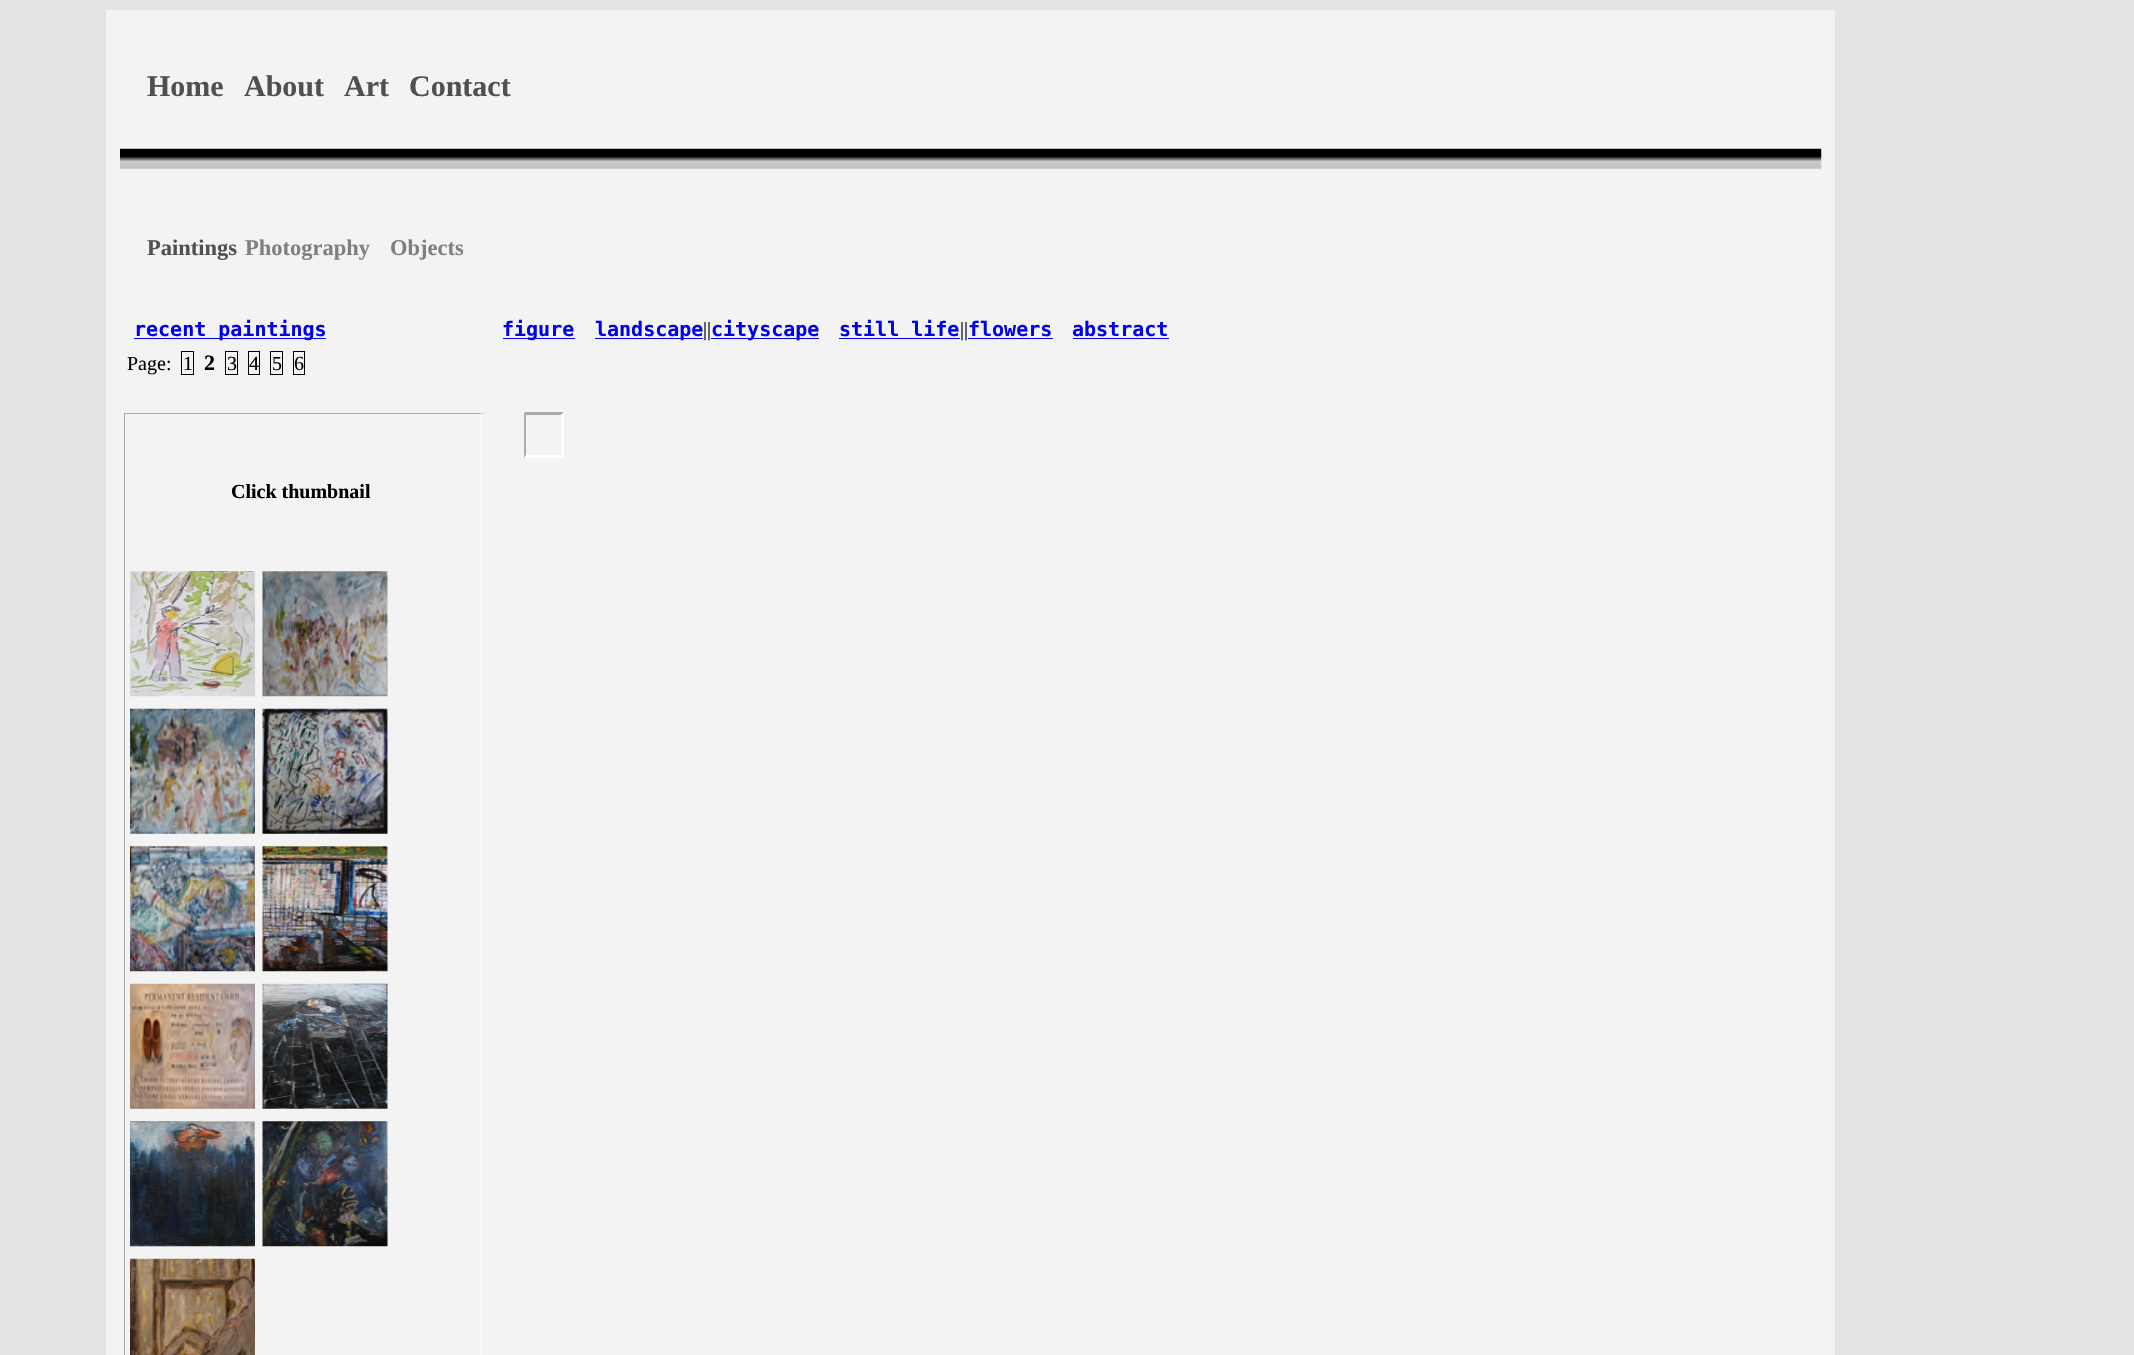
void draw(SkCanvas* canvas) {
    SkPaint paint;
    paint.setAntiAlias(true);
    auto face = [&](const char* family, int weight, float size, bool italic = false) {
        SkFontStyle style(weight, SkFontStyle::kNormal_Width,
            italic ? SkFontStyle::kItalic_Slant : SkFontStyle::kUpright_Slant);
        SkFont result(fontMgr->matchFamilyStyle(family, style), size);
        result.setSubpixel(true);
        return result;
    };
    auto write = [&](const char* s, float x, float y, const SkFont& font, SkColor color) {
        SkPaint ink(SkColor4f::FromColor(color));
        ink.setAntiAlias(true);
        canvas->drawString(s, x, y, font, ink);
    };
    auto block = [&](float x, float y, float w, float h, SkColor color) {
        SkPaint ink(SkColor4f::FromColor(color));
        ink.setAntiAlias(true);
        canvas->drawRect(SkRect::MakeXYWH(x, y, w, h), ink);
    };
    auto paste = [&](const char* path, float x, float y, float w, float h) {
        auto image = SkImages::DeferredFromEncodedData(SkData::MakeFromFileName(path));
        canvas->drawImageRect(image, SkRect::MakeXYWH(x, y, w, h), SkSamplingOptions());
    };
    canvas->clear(SkColorSetRGB(227, 227, 227));
    block(106, 10, 1729, 1345, SkColorSetRGB(243, 243, 243));
    auto kFont1 = face("Liberation Serif", 700, 30);
    write("Home", 147, 96, kFont1, SkColorSetRGB(80, 80, 80));
    write("About", 244, 96, kFont1, SkColorSetRGB(80, 80, 80));
    write("Art", 344, 96, kFont1, SkColorSetRGB(80, 80, 80));
    write("Contact", 409, 96, kFont1, SkColorSetRGB(80, 80, 80));
    paste("pic1.png", 120, 148, 1702, 21);
    auto kFont2 = face("Liberation Serif", 700, 22.5f);
    write("Paintings", 147, 255, kFont2, SkColorSetRGB(80, 80, 80));
    write("Photography", 245, 255, kFont2, SkColorSetRGB(128, 128, 128));
    write("Objects", 390, 255, kFont2, SkColorSetRGB(128, 128, 128));
    block(134, 338, 192, 1, SkColorSetRGB(0, 0, 238));
    auto kFont3 = face("DejaVu Sans Mono", 700, 20);
    write("recent paintings", 134, 336, kFont3, SkColorSetRGB(0, 0, 238));
    block(503, 338, 72, 1, SkColorSetRGB(0, 0, 238));
    write("figure", 502, 336, kFont3, SkColorSetRGB(0, 0, 238));
    block(595, 338, 108, 1, SkColorSetRGB(0, 0, 238));
    write("landscape", 595, 336, kFont3, SkColorSetRGB(0, 0, 238));
    auto kFont4 = face("Liberation Serif", 400, 20);
    write("||", 703, 336, kFont4, SK_ColorBLACK);
    block(711, 338, 108, 1, SkColorSetRGB(0, 0, 238));
    write("cityscape", 711, 336, kFont3, SkColorSetRGB(0, 0, 238));
    write("still life", 839, 336, kFont3, SkColorSetRGB(0, 0, 238));
    block(839, 338, 121, 1, SkColorSetRGB(0, 0, 238));
    write("||", 960, 336, kFont4, SK_ColorBLACK);
    write("flowers", 968, 336, kFont3, SkColorSetRGB(0, 0, 238));
    block(968, 338, 85, 1, SkColorSetRGB(0, 0, 238));
    write("abstract", 1072, 336, kFont3, SkColorSetRGB(0, 0, 238));
    block(1073, 338, 96, 1, SkColorSetRGB(0, 0, 238));
    write("Page:", 127, 370, kFont4, SK_ColorBLACK);
    paint.setStyle(SkPaint::kStroke_Style);
    paint.setStrokeWidth(1);
    paint.setColor(SK_ColorBLACK);
    canvas->drawRect(SkRect::MakeXYWH(181.5f, 351.5f, 12, 23), paint);
    write("1", 183, 370, kFont4, SK_ColorBLACK);
    auto kFont5 = face("Liberation Serif", 700, 22);
    write("2", 204, 370, kFont5, SK_ColorBLACK);
    canvas->drawRect(SkRect::MakeXYWH(225.5f, 351.5f, 12, 23), paint);
    write("3", 227, 370, kFont4, SK_ColorBLACK);
    canvas->drawRect(SkRect::MakeXYWH(248.5f, 351.5f, 11, 23), paint);
    write("4", 249, 370, kFont4, SK_ColorBLACK);
    canvas->drawRect(SkRect::MakeXYWH(270.5f, 351.5f, 12, 23), paint);
    write("5", 272, 370, kFont4, SK_ColorBLACK);
    canvas->drawRect(SkRect::MakeXYWH(293.5f, 351.5f, 11, 23), paint);
    write("6", 294, 370, kFont4, SK_ColorBLACK);
    paint.setStyle(SkPaint::kFill_Style);
    paint.setColor(SkColorSetRGB(170, 170, 170));
    canvas->drawPath(SkPathBuilder().moveTo(524, 412).lineTo(564, 412).lineTo(561, 415).lineTo(526, 415).close().detach(), paint);
    paint.setColor(SK_ColorWHITE);
    canvas->drawPath(SkPathBuilder().moveTo(564, 412).lineTo(564, 458).lineTo(561, 455).lineTo(561, 415).close().detach(), paint);
    canvas->drawPath(SkPathBuilder().moveTo(564, 458).lineTo(524, 458).lineTo(526, 455).lineTo(561, 455).close().detach(), paint);
    paint.setColor(SkColorSetRGB(170, 170, 170));
    canvas->drawPath(SkPathBuilder().moveTo(524, 458).lineTo(524, 412).lineTo(526, 415).lineTo(526, 455).close().detach(), paint);
    block(124, 413, 359, 1, SkColorSetRGB(170, 170, 170));
    block(481, 413, 1, 942, SK_ColorWHITE);
    block(124, 413, 1, 942, SkColorSetRGB(170, 170, 170));
    auto kFont6 = face("Liberation Serif", 700, 20);
    write("Click thumbnail", 231, 498, kFont6, SK_ColorBLACK);
    paste("pic2.png", 130, 571, 125, 126);
    paste("pic3.png", 262, 571, 126, 126);
    paste("pic4.png", 130, 708, 125, 126);
    paste("pic5.png", 262, 708, 126, 126);
    paste("pic6.png", 130, 846, 125, 126);
    paste("pic7.png", 262, 846, 126, 126);
    paste("pic8.png", 130, 983, 125, 126);
    paste("pic9.png", 262, 983, 126, 126);
    paste("pic10.png", 130, 1121, 125, 126);
    paste("pic11.png", 262, 1121, 126, 126);
    paste("pic12.png", 130, 1258, 125, 97);
}
